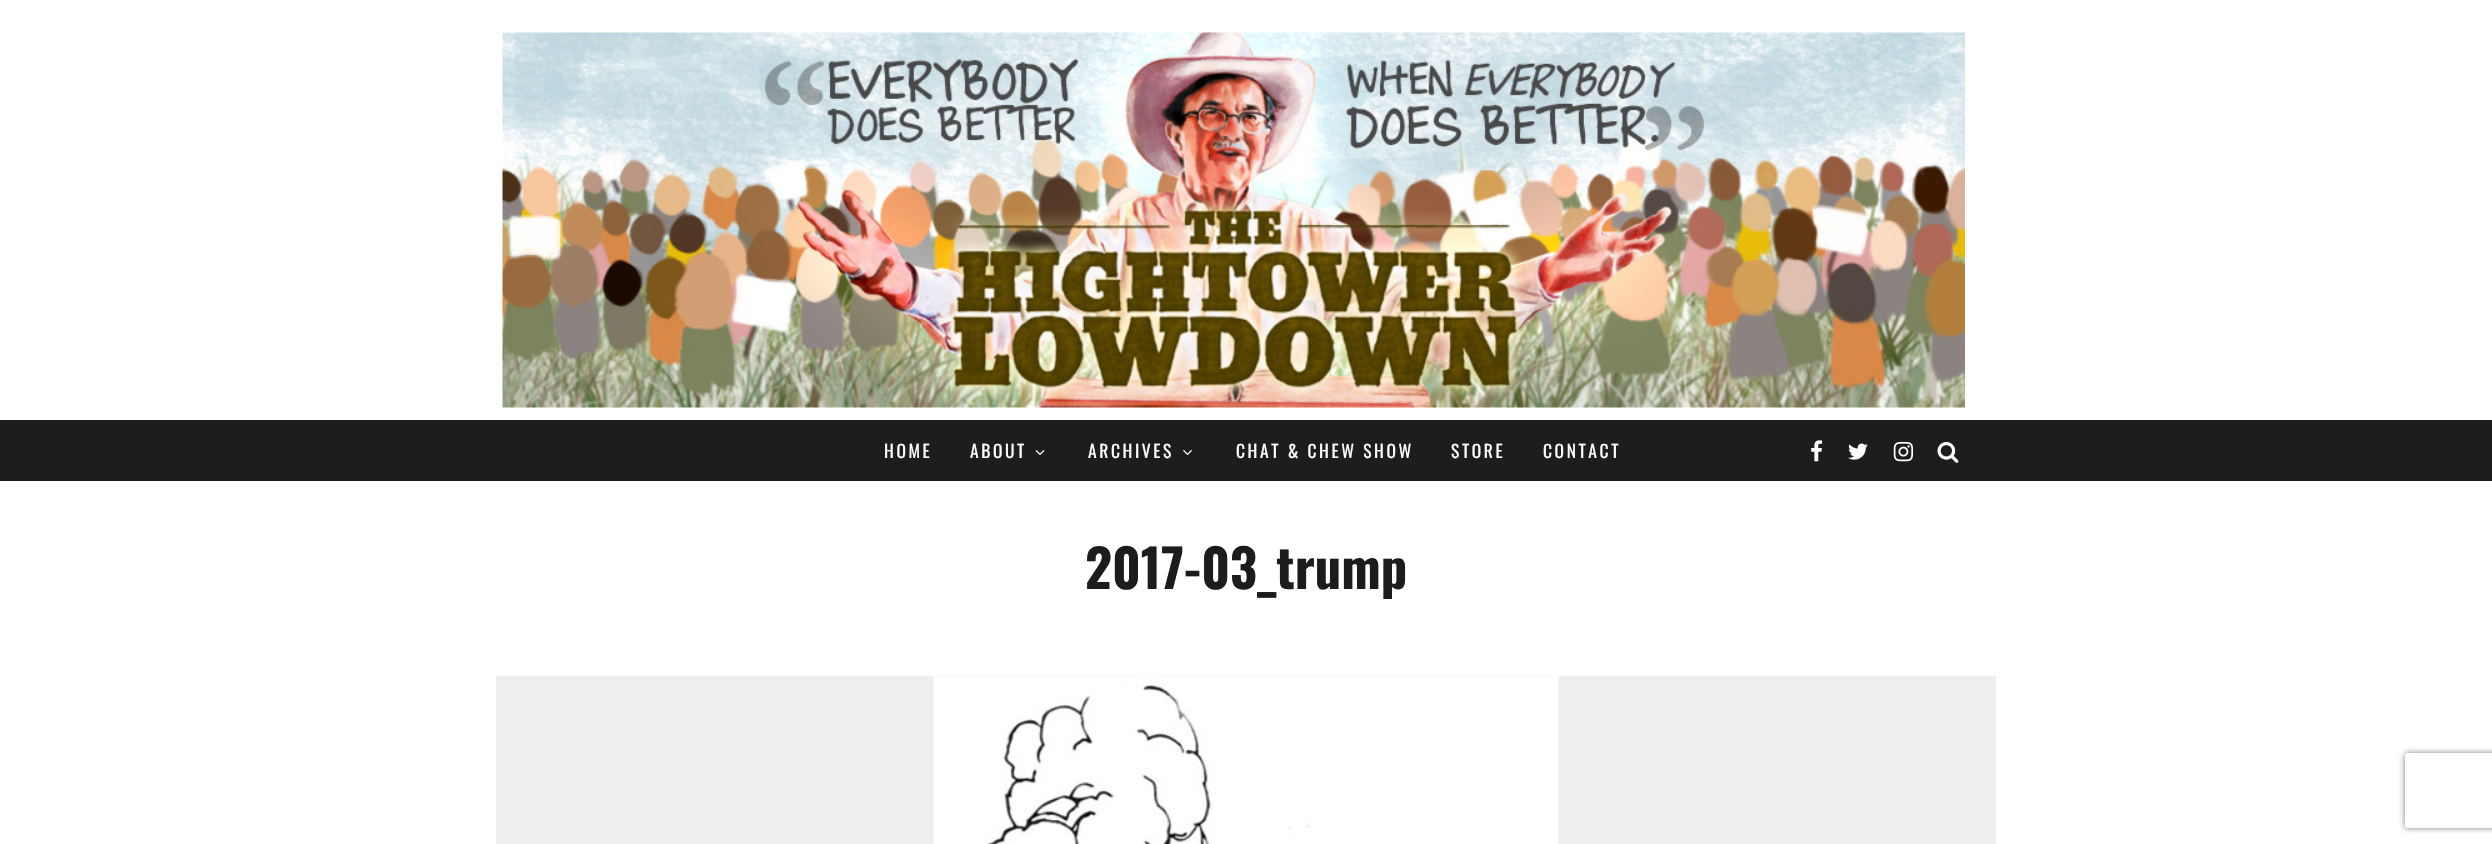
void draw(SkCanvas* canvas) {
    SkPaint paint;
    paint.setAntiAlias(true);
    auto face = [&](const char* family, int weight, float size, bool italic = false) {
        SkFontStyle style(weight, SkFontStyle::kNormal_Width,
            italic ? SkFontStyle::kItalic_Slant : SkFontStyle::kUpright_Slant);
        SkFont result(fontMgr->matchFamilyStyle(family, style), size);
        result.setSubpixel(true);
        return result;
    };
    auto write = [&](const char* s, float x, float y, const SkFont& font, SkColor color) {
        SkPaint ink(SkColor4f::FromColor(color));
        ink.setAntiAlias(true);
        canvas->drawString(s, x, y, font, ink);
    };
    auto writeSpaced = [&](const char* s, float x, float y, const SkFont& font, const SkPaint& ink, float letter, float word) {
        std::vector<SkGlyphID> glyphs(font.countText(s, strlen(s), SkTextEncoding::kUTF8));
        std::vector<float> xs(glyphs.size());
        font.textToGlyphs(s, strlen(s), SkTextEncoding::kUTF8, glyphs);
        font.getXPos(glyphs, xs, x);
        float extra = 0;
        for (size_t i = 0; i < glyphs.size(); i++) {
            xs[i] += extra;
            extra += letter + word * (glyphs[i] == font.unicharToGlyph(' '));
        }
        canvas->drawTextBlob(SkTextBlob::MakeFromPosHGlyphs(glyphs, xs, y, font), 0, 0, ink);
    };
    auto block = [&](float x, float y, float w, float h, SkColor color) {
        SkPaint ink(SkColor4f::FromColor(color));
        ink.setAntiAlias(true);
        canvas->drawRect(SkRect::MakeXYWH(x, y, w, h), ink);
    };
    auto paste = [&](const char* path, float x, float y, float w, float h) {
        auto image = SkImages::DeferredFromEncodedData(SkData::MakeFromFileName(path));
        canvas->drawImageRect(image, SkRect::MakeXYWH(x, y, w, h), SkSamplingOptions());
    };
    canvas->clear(SK_ColorWHITE);
    paste("pic1.png", 502, 32, 1463, 376);
    block(0, 420, 2492, 61, SkColorSetRGB(29, 29, 29));
    auto kFont1 = face("Oswald", 400, 17.5f);
    paint.setColor(SK_ColorWHITE);
    writeSpaced("HOME", 884, 458, kFont1, paint, 2.6f, 0);
    writeSpaced("ABOUT", 970, 458, kFont1, paint, 2.6f, 0);
    paste("pic2.png", 1035, 450, 10, 5);
    writeSpaced("ARCHIVES", 1088, 458, kFont1, paint, 2.6f, 0);
    paste("pic3.png", 1183, 450, 9, 5);
    writeSpaced("CHAT & CHEW SHOW", 1236, 458, kFont1, paint, 2.6f, 0);
    writeSpaced("STORE", 1451, 458, kFont1, paint, 2.6f, 0);
    writeSpaced("CONTACT", 1543, 458, kFont1, paint, 2.6f, 0);
    paste("pic4.png", 1811, 440, 12, 22);
    paste("pic5.png", 1848, 443, 20, 17);
    paste("pic6.png", 1893, 441, 21, 21);
    paste("pic7.png", 1937, 442, 22, 21);
    auto kFont2 = face("Oswald", 700, 52.5f);
    write("2017-03_trump", 1085, 589, kFont2, SkColorSetRGB(28, 28, 28));
    block(496, 676, 1500, 168, SkColorSetRGB(238, 238, 238));
    paste("pic8.png", 933, 676, 626, 168);
    canvas->save();
    canvas->clipPath(SkPathBuilder(SkPathFillType::kEvenOdd).moveTo(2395, 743).lineTo(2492, 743).lineTo(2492, 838).lineTo(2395, 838).close().moveTo(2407.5f, 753).lineTo(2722.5f, 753).cubicTo(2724, 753, 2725, 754, 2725, 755.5f).lineTo(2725, 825.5f).cubicTo(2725, 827, 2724, 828, 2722.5f, 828).lineTo(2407.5f, 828).cubicTo(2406, 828, 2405, 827, 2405, 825.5f).lineTo(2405, 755.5f).cubicTo(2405, 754, 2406, 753, 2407.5f, 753).close().detach(), true);
    paint.setColor(SkColorSetRGB(128, 128, 128));
    paint.setMaskFilter(SkMaskFilter::MakeBlur(kNormal_SkBlurStyle, 3));
    canvas->drawRoundRect(SkRect::MakeXYWH(2405, 753, 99, 75), 2.5f, 2.5f, paint);
    paint.setMaskFilter(nullptr);
    canvas->restore();
}
